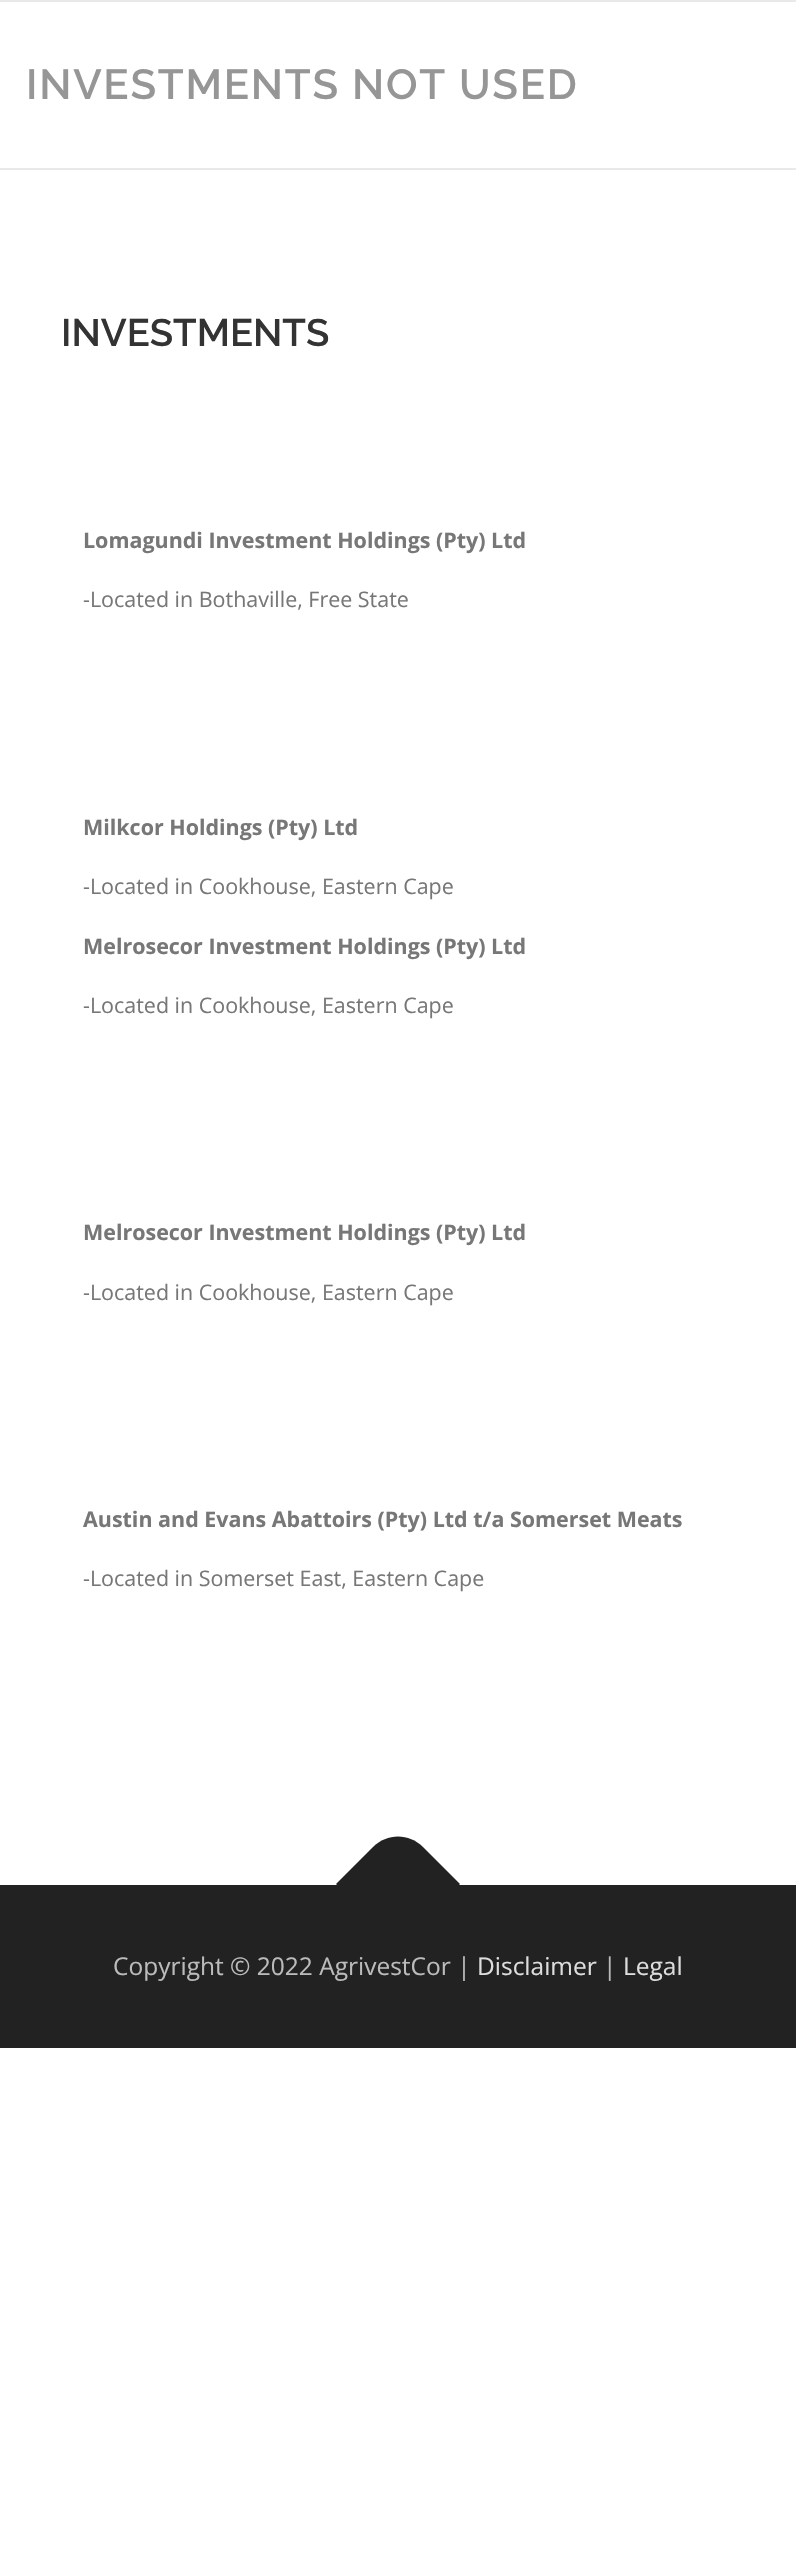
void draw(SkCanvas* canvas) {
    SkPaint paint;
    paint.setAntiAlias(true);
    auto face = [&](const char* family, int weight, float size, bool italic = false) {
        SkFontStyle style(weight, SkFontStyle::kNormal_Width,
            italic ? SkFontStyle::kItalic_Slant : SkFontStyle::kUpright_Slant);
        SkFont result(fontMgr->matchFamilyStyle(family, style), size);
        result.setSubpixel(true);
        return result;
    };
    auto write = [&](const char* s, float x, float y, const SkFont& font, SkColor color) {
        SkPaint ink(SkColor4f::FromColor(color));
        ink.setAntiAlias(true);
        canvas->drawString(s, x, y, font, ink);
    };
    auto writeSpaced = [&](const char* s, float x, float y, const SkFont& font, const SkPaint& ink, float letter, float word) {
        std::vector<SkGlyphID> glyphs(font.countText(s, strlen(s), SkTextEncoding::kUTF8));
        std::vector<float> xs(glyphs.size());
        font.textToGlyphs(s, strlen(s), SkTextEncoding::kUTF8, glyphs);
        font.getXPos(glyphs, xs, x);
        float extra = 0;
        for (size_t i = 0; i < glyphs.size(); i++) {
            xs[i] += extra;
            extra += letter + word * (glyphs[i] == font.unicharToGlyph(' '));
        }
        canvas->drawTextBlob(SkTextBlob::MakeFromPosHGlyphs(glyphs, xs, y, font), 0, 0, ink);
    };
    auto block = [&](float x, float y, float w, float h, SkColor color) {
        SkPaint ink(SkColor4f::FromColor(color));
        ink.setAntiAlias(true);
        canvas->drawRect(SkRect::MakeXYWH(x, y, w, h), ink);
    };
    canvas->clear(SK_ColorWHITE);
    block(0, 0, 796, 2, SkColorSetRGB(233, 233, 233));
    block(0, 168, 796, 2, SkColorSetRGB(233, 233, 233));
    auto kFont1 = face("Raleway", 600, 42);
    paint.setColor(SkColorSetRGB(150, 150, 150));
    writeSpaced("INVESTMENTS NOT USED", 26, 99, kFont1, paint, 1.75f, 0);
    auto kFont2 = face("Raleway", 600, 38.25f);
    write("INVESTMENTS", 61, 346, kFont2, SkColorSetRGB(51, 51, 51));
    auto kFont3 = face("Open Sans", 700, 21.45f);
    write("Lomagundi Investment Holdings (Pty) Ltd", 83, 548, kFont3, SkColorSetRGB(119, 119, 119));
    auto kFont4 = face("Open Sans", 400, 21.45f);
    write("-Located in Bothaville, Free State", 83, 607, kFont4, SkColorSetRGB(119, 119, 119));
    write("Milkcor Holdings (Pty) Ltd", 83, 835, kFont3, SkColorSetRGB(119, 119, 119));
    write("-Located in Cookhouse, Eastern Cape", 83, 894, kFont4, SkColorSetRGB(119, 119, 119));
    write("Melrosecor Investment Holdings (Pty) Ltd", 83, 954, kFont3, SkColorSetRGB(119, 119, 119));
    write("-Located in Cookhouse, Eastern Cape", 83, 1013, kFont4, SkColorSetRGB(119, 119, 119));
    write("Melrosecor Investment Holdings (Pty) Ltd", 83, 1240, kFont3, SkColorSetRGB(119, 119, 119));
    write("-Located in Cookhouse, Eastern Cape", 83, 1300, kFont4, SkColorSetRGB(119, 119, 119));
    write("Austin and Evans Abattoirs (Pty) Ltd t/a Somerset Meats", 83, 1527, kFont3, SkColorSetRGB(119, 119, 119));
    write("-Located in Somerset East, Eastern Cape", 83, 1586, kFont4, SkColorSetRGB(119, 119, 119));
    block(0, 1885, 796, 163, SkColorSetRGB(34, 34, 34));
    paint.setColor(SkColorSetRGB(34, 34, 34));
    canvas->drawPath(SkPathBuilder().moveTo(336, 1884).lineTo(373, 1847).cubicTo(387, 1833, 409, 1833, 423, 1847).lineTo(460, 1884).lineTo(398, 1946).close().detach(), paint);
    auto kFont5 = face("Open Sans", 400, 24.5f);
    write("Copyright © 2022 AgrivestCor |", 113, 1975, kFont5, SkColorSetRGB(187, 187, 187));
    write("Disclaimer", 477, 1975, kFont5, SkColorSetRGB(221, 221, 221));
    write("|", 603, 1975, kFont5, SkColorSetRGB(187, 187, 187));
    write("Legal", 623, 1975, kFont5, SkColorSetRGB(221, 221, 221));
}
